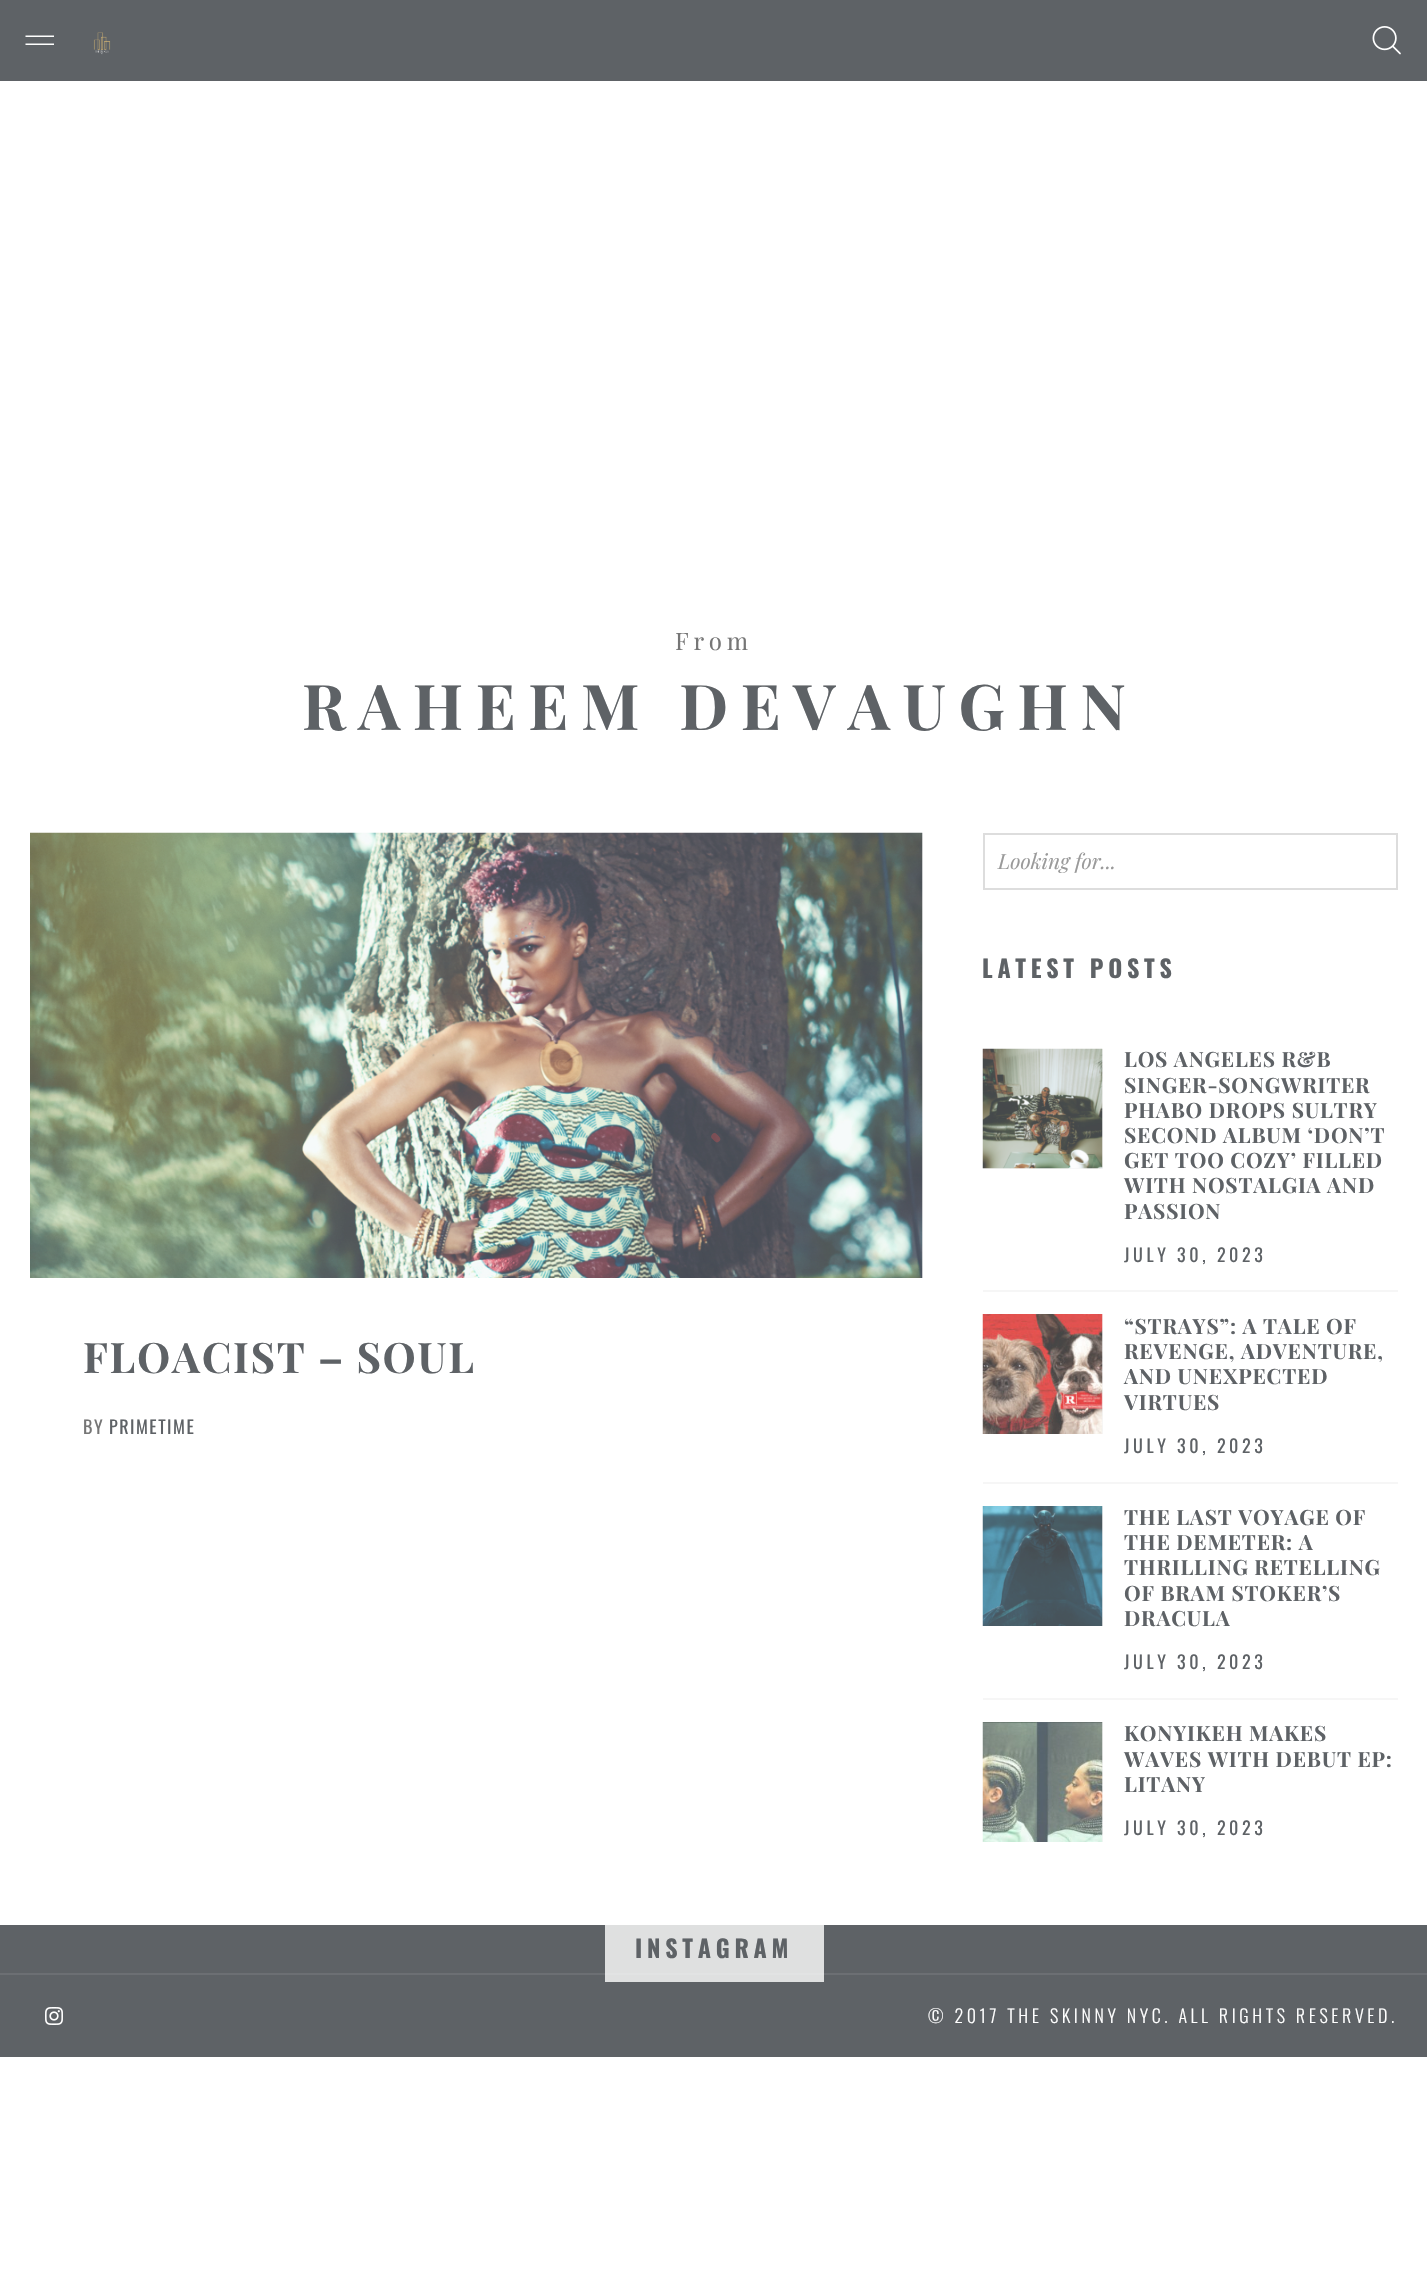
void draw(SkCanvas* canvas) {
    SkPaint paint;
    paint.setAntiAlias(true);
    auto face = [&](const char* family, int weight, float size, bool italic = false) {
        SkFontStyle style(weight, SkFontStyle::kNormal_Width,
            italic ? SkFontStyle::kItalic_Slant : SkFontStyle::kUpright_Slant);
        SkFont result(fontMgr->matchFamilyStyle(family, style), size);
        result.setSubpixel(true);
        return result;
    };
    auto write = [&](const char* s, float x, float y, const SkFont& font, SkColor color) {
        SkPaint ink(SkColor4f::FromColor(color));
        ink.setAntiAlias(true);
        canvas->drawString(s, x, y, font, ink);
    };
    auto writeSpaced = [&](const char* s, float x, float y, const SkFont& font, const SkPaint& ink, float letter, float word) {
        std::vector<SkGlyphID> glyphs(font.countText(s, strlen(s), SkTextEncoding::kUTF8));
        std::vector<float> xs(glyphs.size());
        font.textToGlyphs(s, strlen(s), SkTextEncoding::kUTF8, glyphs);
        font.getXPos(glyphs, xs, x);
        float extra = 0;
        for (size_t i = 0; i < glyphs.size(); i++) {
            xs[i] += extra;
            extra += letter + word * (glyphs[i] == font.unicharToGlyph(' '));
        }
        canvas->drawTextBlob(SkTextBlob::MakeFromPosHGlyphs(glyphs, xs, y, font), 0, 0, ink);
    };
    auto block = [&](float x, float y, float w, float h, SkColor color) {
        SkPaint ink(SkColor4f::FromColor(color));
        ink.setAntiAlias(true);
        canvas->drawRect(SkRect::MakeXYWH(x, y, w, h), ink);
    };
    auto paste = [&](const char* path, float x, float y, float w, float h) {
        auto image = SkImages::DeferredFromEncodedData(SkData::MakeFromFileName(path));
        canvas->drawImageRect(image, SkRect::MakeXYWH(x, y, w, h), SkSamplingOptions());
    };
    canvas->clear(SK_ColorWHITE);
    block(0, 0, 1427, 81, SkColorSetRGB(94, 98, 102));
    paint.setColor(SK_ColorWHITE);
    canvas->drawPath(SkPathBuilder().moveTo(25.5f, 35.5f).lineTo(54, 35.5f).lineTo(54, 37).lineTo(25.5f, 37).close().moveTo(25.5f, 43.5f).lineTo(54, 43.5f).lineTo(54, 45).lineTo(25.5f, 45).close().detach(), paint);
    paste("pic1.png", 93, 32, 18, 23);
    paste("pic2.png", 1372, 26, 29, 29);
    auto kFont1 = face("Playfair Display", 400, 24);
    paint.setColor(SkColorSetRGB(118, 118, 118));
    writeSpaced("From", 675, 650, kFont1, paint, 4.75f, 0);
    auto kFont2 = face("Playfair Display", 700, 63);
    paint.setColor(SkColorSetRGB(94, 98, 102));
    writeSpaced("RAHEEM DEVAUGHN", 302, 730, kFont2, paint, 12.6f, 0);
    block(922, 833, 1, 445, SkColorSetRGB(246, 246, 246));
    paste("pic3.png", 30, 832, 893, 446);
    auto kFont3 = face("Playfair Display", 700, 42);
    writeSpaced("FLOACIST – SOUL", 83, 1373, kFont3, paint, 1.7f, 0);
    auto kFont4 = face("Oswald", 400, 18);
    paint.setColor(SkColorSetRGB(118, 118, 118));
    writeSpaced("BY", 83, 1434, kFont4, paint, 1.5f, 0);
    paint.setColor(SkColorSetRGB(94, 98, 102));
    writeSpaced("PRIMETIME", 109, 1434, kFont4, paint, 1.5f, 0);
    paint.setStyle(SkPaint::kStroke_Style);
    paint.setStrokeWidth(2);
    paint.setColor(SkColorSetRGB(221, 221, 221));
    canvas->drawRect(SkRect::MakeXYWH(984, 834, 413, 55), paint);
    auto kFont5 = face("Playfair Display", 400, 21, true);
    write("Looking for...", 998, 869, kFont5, SkColorSetRGB(154, 154, 154));
    auto kFont6 = face("Oswald", 700, 24);
    paint.setStyle(SkPaint::kFill_Style);
    paint.setColor(SkColorSetRGB(94, 98, 102));
    writeSpaced("LATEST POSTS", 982, 978, kFont6, paint, 4.75f, 0);
    block(983, 1290, 415, 2, SkColorSetRGB(246, 246, 246));
    block(983, 1049, 120, 120, SkColorSetRGB(246, 246, 246));
    paste("pic4.png", 982, 1048, 121, 121);
    auto kFont7 = face("Playfair Display", 700, 21);
    writeSpaced("LOS ANGELES R&B", 1124, 1067, kFont7, paint, 0.8f, 0);
    writeSpaced("SINGER-SONGWRITER", 1124, 1093, kFont7, paint, 0.8f, 0);
    writeSpaced("PHABO DROPS SULTRY", 1124, 1118, kFont7, paint, 0.8f, 0);
    writeSpaced("SECOND ALBUM ‘DON’T", 1124, 1143, kFont7, paint, 0.8f, 0);
    writeSpaced("GET TOO COZY’ FILLED", 1124, 1168, kFont7, paint, 0.8f, 0);
    writeSpaced("WITH NOSTALGIA AND", 1124, 1193, kFont7, paint, 0.8f, 0);
    writeSpaced("PASSION", 1124, 1219, kFont7, paint, 0.8f, 0);
    writeSpaced("JULY 30, 2023", 1124, 1262, kFont4, paint, 3.6f, 0);
    block(983, 1482, 415, 2, SkColorSetRGB(246, 246, 246));
    block(1102, 1314, 1, 120, SkColorSetRGB(246, 246, 246));
    paste("pic5.png", 982, 1314, 121, 120);
    writeSpaced("“STRAYS”: A TALE OF", 1124, 1334, kFont7, paint, 0.8f, 0);
    writeSpaced("REVENGE, ADVENTURE,", 1124, 1359, kFont7, paint, 0.8f, 0);
    writeSpaced("AND UNEXPECTED", 1124, 1384, kFont7, paint, 0.8f, 0);
    writeSpaced("VIRTUES", 1124, 1410, kFont7, paint, 0.8f, 0);
    writeSpaced("JULY 30, 2023", 1124, 1453, kFont4, paint, 3.6f, 0);
    block(983, 1698, 415, 2, SkColorSetRGB(246, 246, 246));
    block(1102, 1506, 1, 120, SkColorSetRGB(246, 246, 246));
    paste("pic6.png", 982, 1506, 121, 120);
    writeSpaced("THE LAST VOYAGE OF", 1124, 1525, kFont7, paint, 0.8f, 0);
    writeSpaced("THE DEMETER: A", 1124, 1550, kFont7, paint, 0.8f, 0);
    writeSpaced("THRILLING RETELLING", 1124, 1575, kFont7, paint, 0.8f, 0);
    writeSpaced("OF BRAM STOKER’S", 1124, 1601, kFont7, paint, 0.8f, 0);
    writeSpaced("DRACULA", 1124, 1626, kFont7, paint, 0.8f, 0);
    writeSpaced("JULY 30, 2023", 1124, 1669, kFont4, paint, 3.6f, 0);
    block(1102, 1722, 1, 120, SkColorSetRGB(246, 246, 246));
    paste("pic7.png", 982, 1722, 121, 120);
    writeSpaced("KONYIKEH MAKES", 1124, 1741, kFont7, paint, 0.8f, 0);
    writeSpaced("WAVES WITH DEBUT EP:", 1124, 1767, kFont7, paint, 0.8f, 0);
    writeSpaced("LITANY", 1124, 1792, kFont7, paint, 0.8f, 0);
    writeSpaced("JULY 30, 2023", 1124, 1835, kFont4, paint, 3.6f, 0);
    block(0, 1925, 1427, 132, SkColorSetRGB(94, 98, 102));
    block(605, 1925, 219, 57, SkColorSetRGB(223, 224, 224));
    writeSpaced("INSTAGRAM", 635, 1958, kFont6, paint, 4.75f, 0);
    block(0, 1973, 1427, 2, SkColorSetRGB(108, 111, 115));
    block(605, 1973, 219, 2, SkColorSetRGB(226, 227, 227));
    paste("pic8.png", 45, 2007, 18, 18);
    auto kFont8 = face("Oswald", 300, 18);
    paint.setColor(SK_ColorWHITE);
    writeSpaced("© 2017 THE SKINNY NYC. ALL RIGHTS RESERVED.", 928, 2023, kFont8, paint, 3.6f, 0);
    paint.setStyle(SkPaint::kStroke_Style);
    paint.setStrokeWidth(6.4f);
    paint.setStrokeCap(SkPaint::kRound_Cap);
    paint.setStrokeJoin(SkPaint::kRound_Join);
    paint.setColor(SkColorSetARGB(69, 255, 82, 82));
    canvas->drawPath(SkPathBuilder().moveTo(714.5f, 1136.5f).lineTo(717, 1139).detach(), paint);
}
